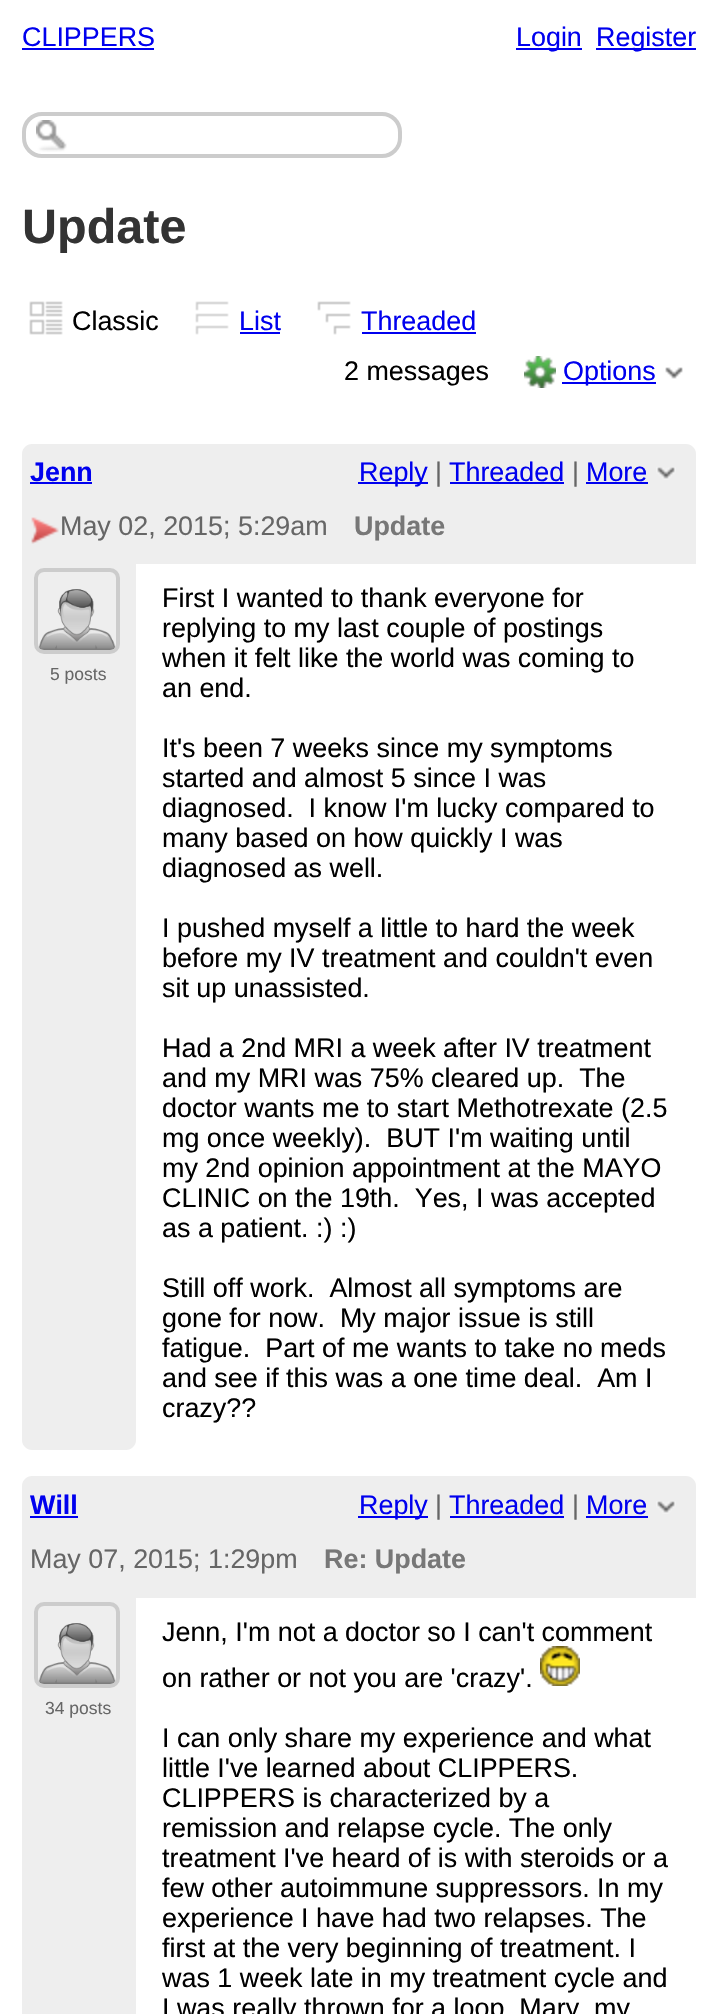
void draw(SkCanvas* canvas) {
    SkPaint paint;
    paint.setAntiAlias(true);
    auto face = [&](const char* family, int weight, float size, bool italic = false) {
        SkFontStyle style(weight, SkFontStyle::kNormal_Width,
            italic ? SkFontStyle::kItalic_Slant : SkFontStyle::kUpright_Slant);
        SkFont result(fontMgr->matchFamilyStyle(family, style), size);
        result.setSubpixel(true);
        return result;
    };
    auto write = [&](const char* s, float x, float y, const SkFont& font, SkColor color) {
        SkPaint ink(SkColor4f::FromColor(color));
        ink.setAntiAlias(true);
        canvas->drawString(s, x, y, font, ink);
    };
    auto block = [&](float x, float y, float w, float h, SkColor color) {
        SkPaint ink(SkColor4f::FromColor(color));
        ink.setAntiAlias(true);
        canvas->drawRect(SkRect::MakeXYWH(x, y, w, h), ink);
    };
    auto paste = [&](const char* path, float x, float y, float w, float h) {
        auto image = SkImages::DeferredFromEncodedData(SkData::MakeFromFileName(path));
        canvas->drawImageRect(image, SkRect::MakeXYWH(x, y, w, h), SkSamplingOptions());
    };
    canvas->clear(SK_ColorWHITE);
    auto kFont1 = face("Liberation Sans", 400, 26.9f);
    write("CLIPPERS", 22, 46, kFont1, SkColorSetRGB(0, 0, 238));
    block(22, 48, 132, 2, SkColorSetRGB(0, 0, 238));
    block(516, 48, 66, 2, SkColorSetRGB(0, 0, 238));
    write("Login", 516, 46, kFont1, SkColorSetRGB(0, 0, 238));
    block(596, 48, 100, 2, SkColorSetRGB(0, 0, 238));
    write("Register", 596, 46, kFont1, SkColorSetRGB(0, 0, 238));
    paste("pic1.png", 36, 120, 31, 32);
    paint.setStyle(SkPaint::kStroke_Style);
    paint.setStrokeWidth(4);
    paint.setColor(SkColorSetRGB(204, 204, 204));
    canvas->drawRoundRect(SkRect::MakeXYWH(24, 114, 376, 42), 18, 18, paint);
    auto kFont2 = face("Liberation Sans", 700, 48.5f);
    write("Update", 22, 243, kFont2, SkColorSetRGB(51, 51, 51));
    paste("pic2.png", 29, 301, 34, 34);
    write("Classic", 72, 330, kFont1, SK_ColorBLACK);
    paste("pic3.png", 195, 301, 34, 34);
    write("List", 239, 330, kFont1, SkColorSetRGB(0, 0, 238));
    block(240, 332, 40, 2, SkColorSetRGB(0, 0, 238));
    paste("pic4.png", 317, 301, 34, 34);
    write("Threaded", 361, 330, kFont1, SkColorSetRGB(0, 0, 238));
    block(362, 332, 114, 2, SkColorSetRGB(0, 0, 238));
    write("2 messages", 344, 380, kFont1, SK_ColorBLACK);
    paste("pic5.png", 524, 356, 32, 32);
    block(562, 382, 94, 2, SkColorSetRGB(0, 0, 238));
    write("Options", 563, 380, kFont1, SkColorSetRGB(0, 0, 238));
    paste("pic6.png", 665, 367, 18, 12);
    paint.setStyle(SkPaint::kFill_Style);
    paint.setColor(SkColorSetRGB(238, 238, 238));
    canvas->drawPath(SkPathBuilder().moveTo(32, 444).lineTo(686, 444).cubicTo(691.5f, 444, 696, 448.5f, 696, 454).lineTo(696, 564).lineTo(22, 564).lineTo(22, 454).cubicTo(22, 448.5f, 26.5f, 444, 32, 444).close().detach(), paint);
    auto kFont3 = face("Liberation Sans", 700, 26.9f);
    write("Jenn", 30, 481, kFont3, SkColorSetRGB(0, 0, 238));
    block(30, 482, 62, 2, SkColorSetRGB(0, 0, 238));
    block(358, 482, 70, 2, SkColorSetRGB(0, 0, 238));
    write("Reply", 359, 481, kFont1, SkColorSetRGB(0, 0, 238));
    write("|", 435, 481, kFont1, SkColorSetRGB(102, 102, 102));
    write("Threaded", 449, 481, kFont1, SkColorSetRGB(0, 0, 238));
    block(450, 482, 114, 2, SkColorSetRGB(0, 0, 238));
    write("|", 572, 481, kFont1, SkColorSetRGB(102, 102, 102));
    write("More", 586, 481, kFont1, SkColorSetRGB(0, 0, 238));
    block(586, 482, 62, 2, SkColorSetRGB(0, 0, 238));
    paste("pic7.png", 656, 467, 20, 13);
    paste("pic8.png", 31, 517, 28, 27);
    write("May 02, 2015; 5:29am", 60, 535, kFont1, SkColorSetRGB(102, 102, 102));
    write("Update", 354, 535, kFont3, SkColorSetRGB(119, 119, 119));
    canvas->drawPath(SkPathBuilder().moveTo(22, 556).lineTo(136, 556).lineTo(136, 1440).cubicTo(136, 1445.5f, 131.5f, 1450, 126, 1450).lineTo(32, 1450).cubicTo(26.5f, 1450, 22, 1445.5f, 22, 1440).close().detach(), paint);
    paint.setStyle(SkPaint::kStroke_Style);
    paint.setColor(SkColorSetRGB(204, 204, 204));
    canvas->drawRoundRect(SkRect::MakeXYWH(36, 570, 82, 82), 8, 8, paint);
    paste("pic9.png", 39, 589, 77, 61);
    auto kFont4 = face("Liberation Sans", 400, 17.5f);
    write("5 posts", 50, 680, kFont4, SkColorSetRGB(102, 102, 102));
    write("First I wanted to thank everyone for", 162, 607, kFont1, SK_ColorBLACK);
    write("replying to my last couple of postings", 162, 637, kFont1, SK_ColorBLACK);
    write("when it felt like the world was coming to", 162, 667, kFont1, SK_ColorBLACK);
    write("an end.", 162, 697, kFont1, SK_ColorBLACK);
    write("It's been 7 weeks since my symptoms", 162, 757, kFont1, SK_ColorBLACK);
    write("started and almost 5 since I was", 162, 787, kFont1, SK_ColorBLACK);
    write("diagnosed.  I know I'm lucky compared to", 162, 817, kFont1, SK_ColorBLACK);
    write("many based on how quickly I was", 162, 847, kFont1, SK_ColorBLACK);
    write("diagnosed as well.", 162, 877, kFont1, SK_ColorBLACK);
    write("I pushed myself a little to hard the week", 162, 937, kFont1, SK_ColorBLACK);
    write("before my IV treatment and couldn't even", 162, 967, kFont1, SK_ColorBLACK);
    write("sit up unassisted.", 162, 997, kFont1, SK_ColorBLACK);
    write("Had a 2nd MRI a week after IV treatment", 162, 1057, kFont1, SK_ColorBLACK);
    write("and my MRI was 75% cleared up.  The", 162, 1087, kFont1, SK_ColorBLACK);
    write("doctor wants me to start Methotrexate (2.5", 162, 1117, kFont1, SK_ColorBLACK);
    write("mg once weekly).  BUT I'm waiting until", 162, 1147, kFont1, SK_ColorBLACK);
    write("my 2nd opinion appointment at the MAYO", 162, 1177, kFont1, SK_ColorBLACK);
    write("CLINIC on the 19th.  Yes, I was accepted", 162, 1207, kFont1, SK_ColorBLACK);
    write("as a patient. :) :)", 162, 1237, kFont1, SK_ColorBLACK);
    write("Still off work.  Almost all symptoms are", 162, 1297, kFont1, SK_ColorBLACK);
    write("gone for now.  My major issue is still", 162, 1327, kFont1, SK_ColorBLACK);
    write("fatigue.  Part of me wants to take no meds", 162, 1357, kFont1, SK_ColorBLACK);
    write("and see if this was a one time deal.  Am I", 162, 1387, kFont1, SK_ColorBLACK);
    write("crazy?\077", 162, 1417, kFont1, SK_ColorBLACK);
    paint.setStyle(SkPaint::kFill_Style);
    paint.setColor(SkColorSetRGB(238, 238, 238));
    canvas->drawPath(SkPathBuilder().moveTo(32, 1476).lineTo(686, 1476).cubicTo(691.5f, 1476, 696, 1480.5f, 696, 1486).lineTo(696, 1598).lineTo(22, 1598).lineTo(22, 1486).cubicTo(22, 1480.5f, 26.5f, 1476, 32, 1476).close().detach(), paint);
    write("Will", 30, 1514, kFont3, SkColorSetRGB(0, 0, 238));
    block(30, 1516, 48, 2, SkColorSetRGB(0, 0, 238));
    block(358, 1516, 70, 2, SkColorSetRGB(0, 0, 238));
    write("Reply", 359, 1514, kFont1, SkColorSetRGB(0, 0, 238));
    write("|", 435, 1514, kFont1, SkColorSetRGB(102, 102, 102));
    write("Threaded", 449, 1514, kFont1, SkColorSetRGB(0, 0, 238));
    block(450, 1516, 114, 2, SkColorSetRGB(0, 0, 238));
    write("|", 572, 1514, kFont1, SkColorSetRGB(102, 102, 102));
    write("More", 586, 1514, kFont1, SkColorSetRGB(0, 0, 238));
    block(586, 1516, 62, 2, SkColorSetRGB(0, 0, 238));
    paste("pic7.png", 656, 1501, 20, 13);
    write("May 07, 2015; 1:29pm", 30, 1568, kFont1, SkColorSetRGB(102, 102, 102));
    write("Re: Update", 324, 1568, kFont3, SkColorSetRGB(119, 119, 119));
    block(22, 1598, 114, 416, SkColorSetRGB(238, 238, 238));
    paint.setStyle(SkPaint::kStroke_Style);
    paint.setColor(SkColorSetRGB(204, 204, 204));
    canvas->drawRoundRect(SkRect::MakeXYWH(36, 1604, 82, 82), 8, 8, paint);
    paste("pic10.png", 39, 1623, 77, 61);
    write("34 posts", 45, 1714, kFont4, SkColorSetRGB(102, 102, 102));
    write("Jenn, I'm not a doctor so I can't comment", 162, 1641, kFont1, SK_ColorBLACK);
    write("on rather or not you are 'crazy'.", 162, 1687, kFont1, SK_ColorBLACK);
    paste("pic11.png", 540, 1646, 40, 40);
    write("I can only share my experience and what", 162, 1747, kFont1, SK_ColorBLACK);
    write("little I've learned about CLIPPERS.", 162, 1777, kFont1, SK_ColorBLACK);
    write("CLIPPERS is characterized by a", 162, 1807, kFont1, SK_ColorBLACK);
    write("remission and relapse cycle. The only", 162, 1837, kFont1, SK_ColorBLACK);
    write("treatment I've heard of is with steroids or a", 162, 1867, kFont1, SK_ColorBLACK);
    write("few other autoimmune suppressors. In my", 162, 1897, kFont1, SK_ColorBLACK);
    write("experience I have had two relapses. The", 162, 1927, kFont1, SK_ColorBLACK);
    write("first at the very beginning of treatment. I", 162, 1957, kFont1, SK_ColorBLACK);
    write("was 1 week late in my treatment cycle and", 162, 1987, kFont1, SK_ColorBLACK);
    write("I was really thrown for a loop. Mary, my", 162, 2017, kFont1, SK_ColorBLACK);
}
